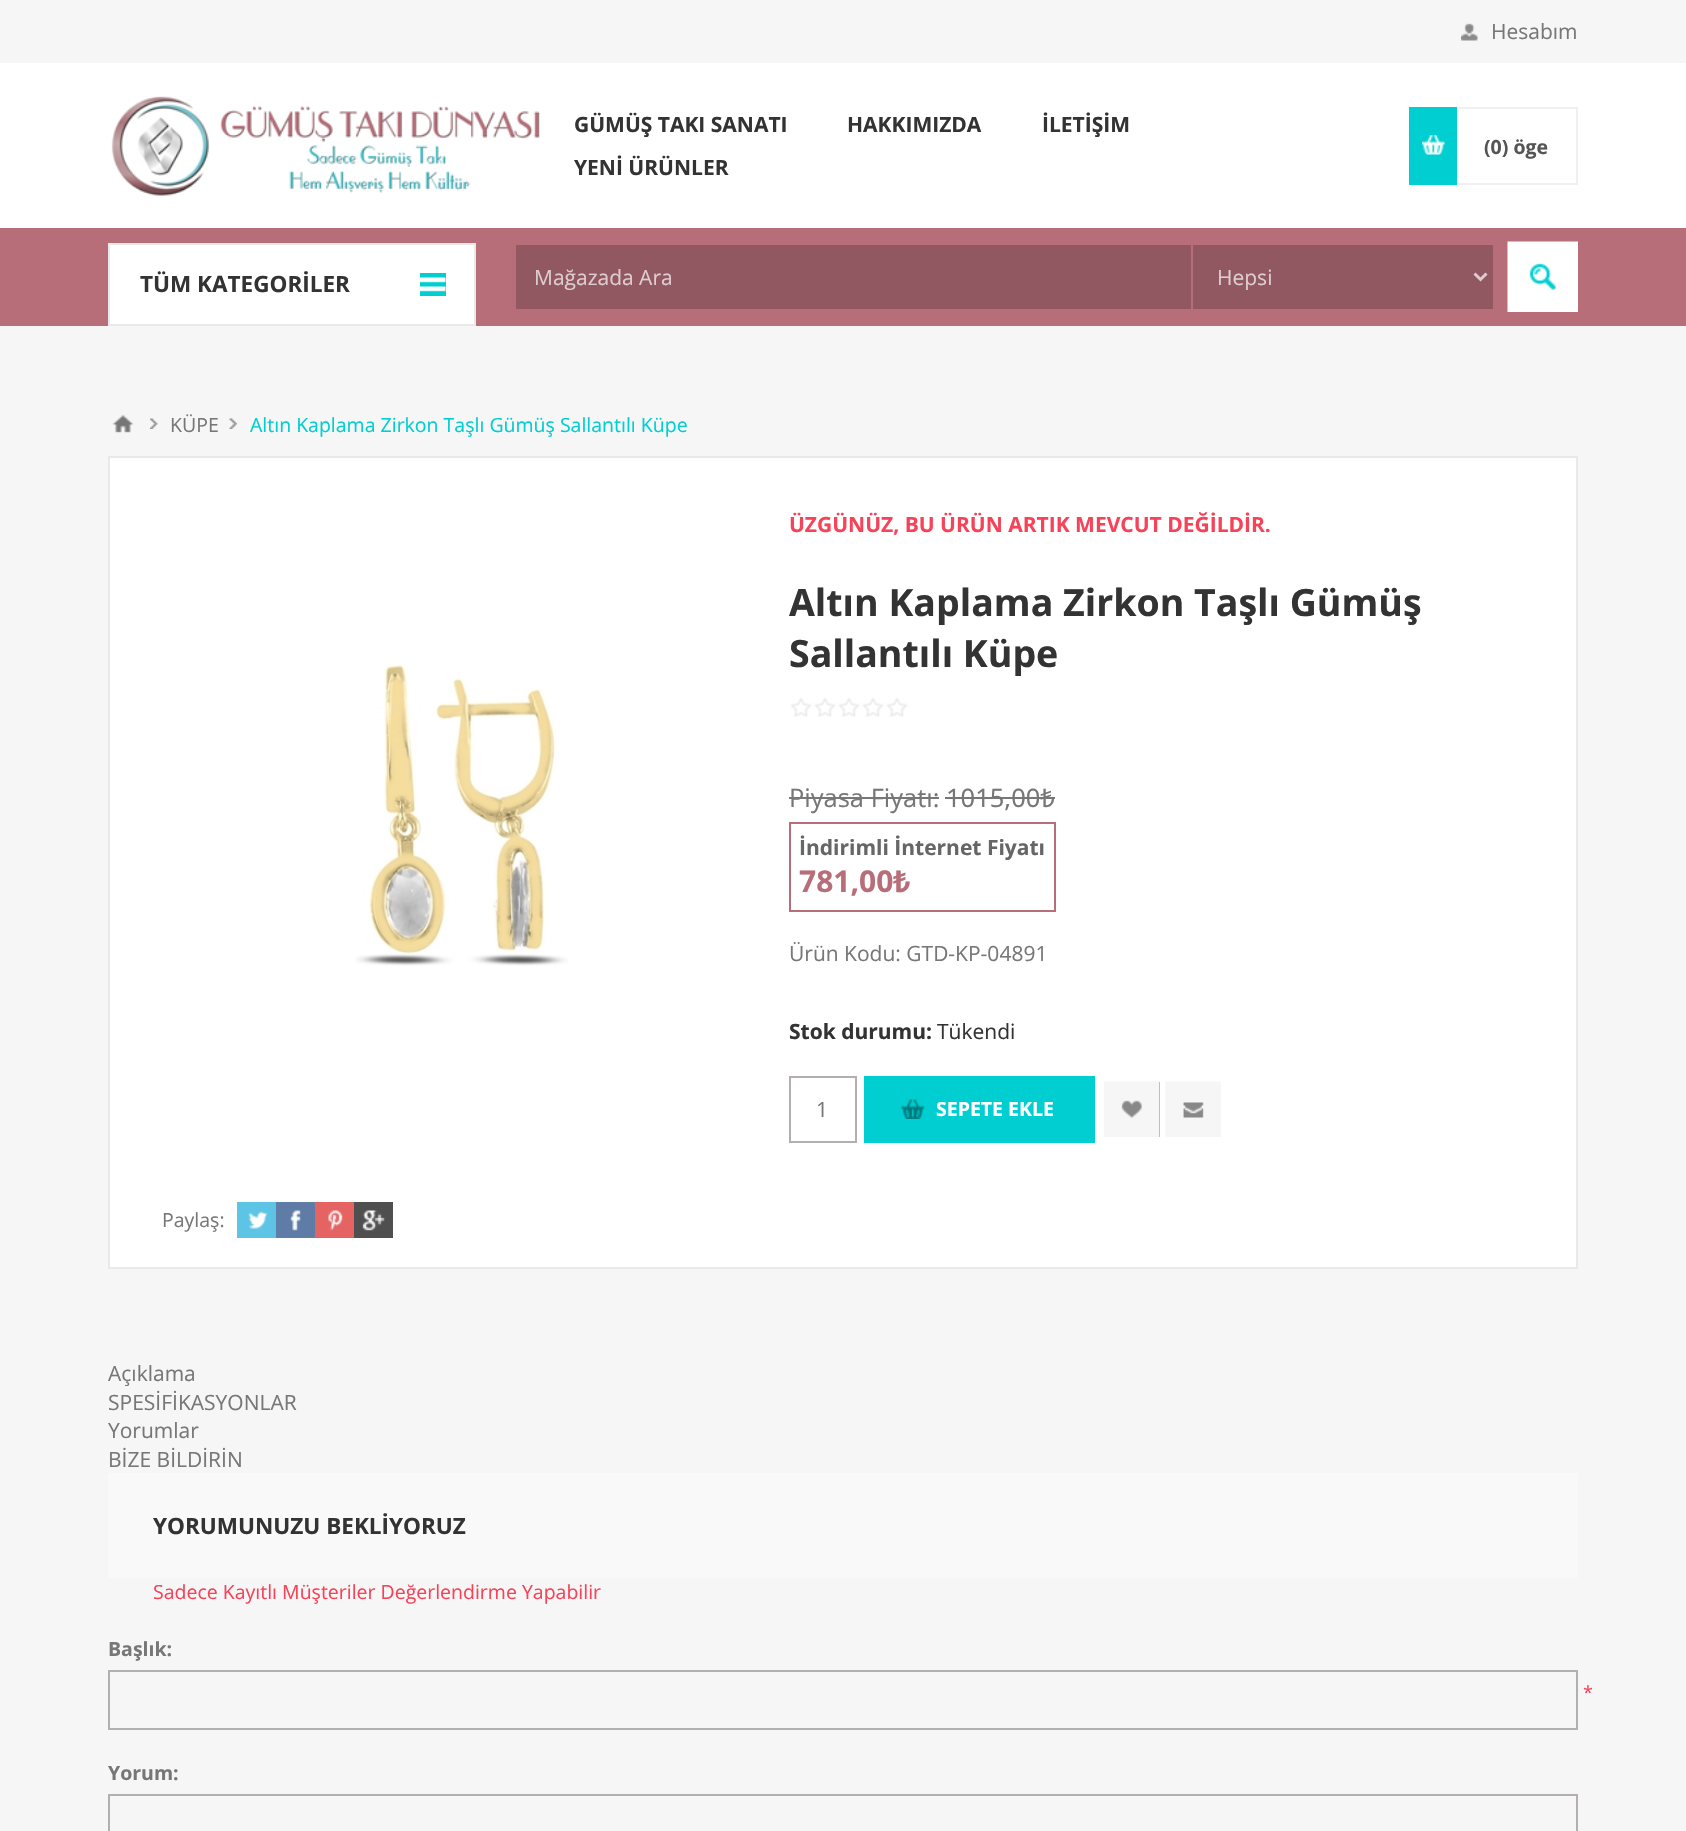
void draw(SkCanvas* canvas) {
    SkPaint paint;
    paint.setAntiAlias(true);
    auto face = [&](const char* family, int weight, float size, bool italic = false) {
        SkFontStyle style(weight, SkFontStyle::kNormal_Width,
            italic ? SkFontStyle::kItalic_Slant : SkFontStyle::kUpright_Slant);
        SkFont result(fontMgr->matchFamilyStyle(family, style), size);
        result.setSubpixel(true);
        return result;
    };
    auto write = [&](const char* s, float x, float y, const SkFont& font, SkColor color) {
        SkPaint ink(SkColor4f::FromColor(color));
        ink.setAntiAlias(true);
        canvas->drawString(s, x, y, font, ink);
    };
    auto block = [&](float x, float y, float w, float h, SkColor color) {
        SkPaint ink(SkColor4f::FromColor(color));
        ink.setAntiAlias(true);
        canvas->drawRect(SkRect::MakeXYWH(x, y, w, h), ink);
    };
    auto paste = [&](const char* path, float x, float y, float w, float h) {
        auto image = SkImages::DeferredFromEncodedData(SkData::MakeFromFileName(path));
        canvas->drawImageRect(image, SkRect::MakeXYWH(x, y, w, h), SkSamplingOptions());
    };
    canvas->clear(SkColorSetRGB(246, 246, 246));
    paste("pic1.png", 1461, 23, 17, 18);
    auto kFont1 = face("Open Sans", 400, 21);
    write("Hesabım", 1491, 39, kFont1, SkColorSetRGB(119, 119, 119));
    block(0, 63, 1686, 165, SK_ColorWHITE);
    paste("pic2.png", 108, 93, 435, 105);
    auto kFont2 = face("Open Sans", 700, 21);
    write("GÜMÜŞ TAKI SANATI", 574, 132, kFont2, SkColorSetRGB(51, 51, 51));
    write("HAKKIMIZDA", 847, 132, kFont2, SkColorSetRGB(51, 51, 51));
    write("İLETİŞİM", 1042, 132, kFont2, SkColorSetRGB(51, 51, 51));
    write("YENİ ÜRÜNLER", 574, 175, kFont2, SkColorSetRGB(51, 51, 51));
    paint.setStyle(SkPaint::kStroke_Style);
    paint.setStrokeWidth(2);
    paint.setColor(SkColorSetRGB(240, 240, 240));
    canvas->drawRect(SkRect::MakeXYWH(1456, 108, 121, 76), paint);
    block(1409, 107, 48, 78, SkColorSetRGB(0, 206, 209));
    paste("pic3.png", 1422, 135, 23, 20);
    auto kFont3 = face("Open Sans", 700, 19.5f);
    write("(0) öge", 1484, 154, kFont3, SkColorSetRGB(85, 85, 85));
    block(0, 228, 1686, 98, SkColorSetRGB(183, 110, 121));
    paint.setStyle(SkPaint::kFill_Style);
    paint.setColor(SK_ColorWHITE);
    canvas->drawRect(SkRect::MakeXYWH(109, 244, 366, 81), paint);
    paint.setStyle(SkPaint::kStroke_Style);
    paint.setColor(SkColorSetRGB(233, 233, 233));
    canvas->drawRect(SkRect::MakeXYWH(109, 244, 366, 81), paint);
    auto kFont4 = face("Open Sans", 700, 22.5f);
    write("TÜM KATEGORİLER", 140, 292, kFont4, SkColorSetRGB(51, 51, 51));
    block(420, 273, 26, 23, SkColorSetRGB(0, 206, 209));
    paste("pic4.png", 420, 277, 26, 15);
    block(516, 245, 675, 64, SkColorSetRGB(146, 88, 97));
    write("Mağazada Ara", 534, 285, kFont1, SkColorSetRGB(222, 205, 208));
    block(1193, 245, 300, 64, SkColorSetRGB(146, 88, 97));
    paint.setStrokeWidth(3);
    paint.setColor(SkColorSetRGB(222, 205, 208));
    canvas->drawPath(SkPathBuilder().moveTo(1474.5f, 273.5f).lineTo(1480.5f, 279.5f).lineTo(1486.5f, 273.5f).detach(), paint);
    write("Hepsi", 1217, 285, kFont1, SkColorSetRGB(222, 205, 208));
    block(1529, 263, 27, 27, SkColorSetRGB(0, 206, 209));
    paste("pic5.png", 1507, 241, 71, 71);
    paste("pic6.png", 112, 415, 22, 18);
    paste("pic7.png", 150, 418, 8, 11);
    auto kFont5 = face("Open Sans", 400, 19.5f);
    write("KÜPE", 170, 432, kFont5, SkColorSetRGB(119, 119, 119));
    paste("pic8.png", 229, 418, 8, 11);
    write("Altın Kaplama Zirkon Taşlı Gümüş Sallantılı Küpe", 250, 432, kFont5, SkColorSetRGB(0, 206, 209));
    paint.setStyle(SkPaint::kFill_Style);
    paint.setColor(SK_ColorWHITE);
    canvas->drawRect(SkRect::MakeXYWH(109, 457, 1468, 811), paint);
    paint.setStyle(SkPaint::kStroke_Style);
    paint.setStrokeWidth(2);
    paint.setColor(SkColorSetRGB(233, 233, 233));
    canvas->drawRect(SkRect::MakeXYWH(109, 457, 1468, 811), paint);
    paste("pic9.png", 355, 663, 213, 303);
    write("ÜZGÜNÜZ, BU ÜRÜN ARTIK MEVCUT DEĞİLDİR.", 789, 532, kFont2, SkColorSetRGB(247, 66, 88));
    auto kFont6 = face("Open Sans", 700, 37.5f);
    write("Altın Kaplama Zirkon Taşlı Gümüş", 789, 616, kFont6, SkColorSetRGB(51, 51, 51));
    write("Sallantılı Küpe", 789, 667, kFont6, SkColorSetRGB(51, 51, 51));
    paste("pic10.png", 790, 697, 118, 20);
    auto kFont7 = face("Open Sans", 400, 25.5f);
    write("Piyasa Fiyatı:", 789, 807, kFont7, SkColorSetRGB(119, 119, 119));
    block(789, 797, 150, 2, SkColorSetRGB(119, 119, 119));
    auto kFont8 = face("Noto Sans", 400, 25.5f);
    write("1015,00₺", 946, 807, kFont8, SkColorSetRGB(119, 119, 119));
    block(945, 797, 110, 2, SkColorSetRGB(119, 119, 119));
    paint.setColor(SkColorSetRGB(183, 110, 121));
    canvas->drawRect(SkRect::MakeXYWH(790, 823, 265, 88), paint);
    write("İndirimli İnternet Fiyatı", 799, 855, kFont2, SkColorSetRGB(102, 102, 102));
    auto kFont9 = face("Noto Sans", 700, 30);
    write("781,00₺", 799, 892, kFont9, SkColorSetRGB(183, 110, 121));
    write("Ürün Kodu: GTD-KP-04891", 789, 961, kFont1, SkColorSetRGB(119, 119, 119));
    write("Stok durumu:", 789, 1039, kFont2, SkColorSetRGB(51, 51, 51));
    write("Tükendi", 937, 1039, kFont1, SkColorSetRGB(51, 51, 51));
    paint.setColor(SkColorSetRGB(179, 175, 175));
    canvas->drawRect(SkRect::MakeXYWH(790, 1077, 66, 65), paint);
    write("1", 816, 1117, kFont1, SkColorSetRGB(119, 119, 119));
    block(864, 1076, 231, 67, SkColorSetRGB(0, 206, 209));
    paste("pic11.png", 901, 1099, 24, 20);
    write("SEPETE EKLE", 936, 1116, kFont3, SK_ColorWHITE);
    block(1121, 1082, 39, 55, SkColorSetRGB(136, 136, 136));
    paste("pic12.png", 1104, 1081, 56, 56);
    block(1183, 1102, 21, 16, SkColorSetRGB(136, 136, 136));
    paste("pic13.png", 1165, 1081, 56, 56);
    write("Paylaş:", 162, 1227, kFont5, SkColorSetRGB(119, 119, 119));
    block(237, 1202, 39, 36, SkColorSetRGB(93, 196, 230));
    paste("pic14.png", 248, 1211, 20, 18);
    block(276, 1202, 39, 36, SkColorSetRGB(95, 124, 167));
    paste("pic15.png", 290, 1210, 11, 21);
    block(315, 1202, 39, 36, SkColorSetRGB(229, 99, 99));
    paste("pic16.png", 328, 1210, 15, 21);
    block(354, 1202, 39, 36, SkColorSetRGB(79, 79, 79));
    paste("pic17.png", 362, 1210, 23, 21);
    write("Açıklama", 108, 1381, kFont1, SkColorSetRGB(119, 119, 119));
    write("SPESİFİKASYONLAR", 108, 1410, kFont1, SkColorSetRGB(119, 119, 119));
    write("Yorumlar", 108, 1438, kFont1, SkColorSetRGB(119, 119, 119));
    write("BİZE BİLDİRİN", 108, 1467, kFont1, SkColorSetRGB(119, 119, 119));
    block(108, 1473, 1470, 105, SkColorSetRGB(249, 249, 249));
    write("YORUMUNUZU BEKLİYORUZ", 153, 1534, kFont4, SkColorSetRGB(51, 51, 51));
    write("Sadece Kayıtlı Müşteriler Değerlendirme Yapabilir", 153, 1599, kFont5, SkColorSetRGB(247, 66, 88));
    write("Başlık:", 108, 1656, kFont3, SkColorSetRGB(119, 119, 119));
    canvas->drawRect(SkRect::MakeXYWH(109, 1671, 1468, 58), paint);
    auto kFont10 = face("Open Sans", 400, 18);
    write("*", 1583, 1699, kFont10, SkColorSetRGB(247, 66, 88));
    write("Yorum:", 108, 1780, kFont3, SkColorSetRGB(119, 119, 119));
    canvas->drawRect(SkRect::MakeXYWH(109, 1795, 1468, 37), paint);
}
